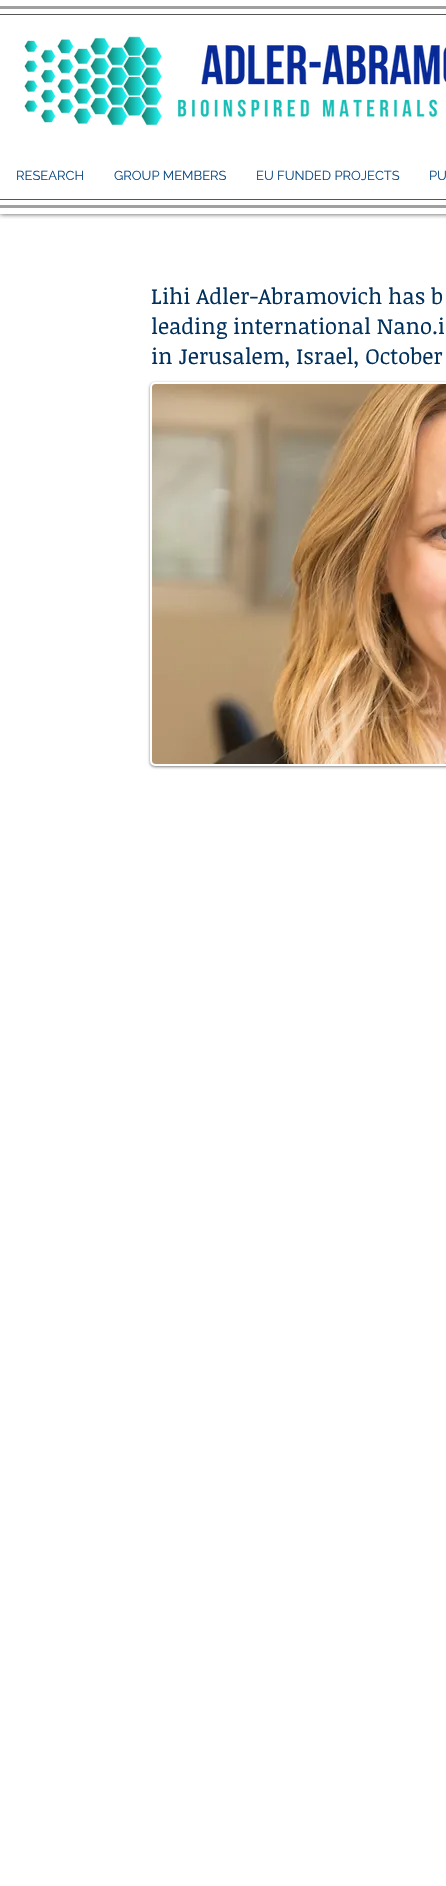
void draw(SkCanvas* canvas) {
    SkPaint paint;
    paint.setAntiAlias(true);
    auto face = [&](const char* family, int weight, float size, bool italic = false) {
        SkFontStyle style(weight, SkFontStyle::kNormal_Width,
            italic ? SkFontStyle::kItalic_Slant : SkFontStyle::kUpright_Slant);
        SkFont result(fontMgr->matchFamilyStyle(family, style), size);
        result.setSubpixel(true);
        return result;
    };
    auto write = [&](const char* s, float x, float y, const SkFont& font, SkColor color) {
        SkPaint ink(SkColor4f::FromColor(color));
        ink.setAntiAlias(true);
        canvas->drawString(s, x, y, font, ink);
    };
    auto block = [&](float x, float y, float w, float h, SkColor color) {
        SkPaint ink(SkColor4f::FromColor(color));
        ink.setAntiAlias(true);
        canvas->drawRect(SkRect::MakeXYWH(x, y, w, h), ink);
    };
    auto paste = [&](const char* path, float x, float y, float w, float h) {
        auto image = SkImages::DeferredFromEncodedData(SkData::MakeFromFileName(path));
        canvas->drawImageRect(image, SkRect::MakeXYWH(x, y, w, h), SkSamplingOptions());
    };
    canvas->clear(SK_ColorWHITE);
    canvas->save();
    canvas->clipRect(SkRect::MakeXYWH(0, 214, 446, 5));
    paint.setColor(SkColorSetARGB(179, 0, 0, 0));
    paint.setMaskFilter(SkMaskFilter::MakeBlur(kNormal_SkBlurStyle, 2.5f));
    canvas->drawRect(SkRect::MakeXYWH(0, 0, 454, 214), paint);
    paint.setMaskFilter(nullptr);
    canvas->restore();
    block(0, 6, 446, 3, SkColorSetRGB(160, 160, 160));
    block(0, 205, 446, 3, SkColorSetRGB(160, 160, 160));
    block(0, 14, 446, 1, SkColorSetRGB(85, 85, 85));
    block(0, 199, 446, 1, SkColorSetRGB(85, 85, 85));
    paste("pic1.png", 24, 36, 422, 90);
    auto kFont1 = face("Raleway", 400, 13);
    write("RESEARCH", 16, 180, kFont1, SkColorSetRGB(15, 76, 133));
    write("GROUP MEMBERS", 114, 180, kFont1, SkColorSetRGB(15, 76, 133));
    write("EU FUNDED PROJECTS", 256, 180, kFont1, SkColorSetRGB(15, 76, 133));
    write("PU", 429, 180, kFont1, SkColorSetRGB(15, 76, 133));
    auto kFont2 = face("Noticia Text", 400, 22);
    write("Lihi Adler-Abramovich has b", 151, 304, kFont2, SkColorSetRGB(0, 48, 91));
    write("leading international Nano.i", 151, 334, kFont2, SkColorSetRGB(0, 48, 91));
    write("in Jerusalem, Israel, October", 151, 364, kFont2, SkColorSetRGB(0, 48, 91));
    paint.setColor(SkColorSetARGB(128, 0, 0, 0));
    paint.setMaskFilter(SkMaskFilter::MakeBlur(kNormal_SkBlurStyle, 1.5f));
    canvas->drawRoundRect(SkRect::MakeXYWH(150, 383, 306, 384), 5, 5, paint);
    paint.setMaskFilter(nullptr);
    paint.setColor(SK_ColorWHITE);
    canvas->drawRoundRect(SkRect::MakeXYWH(151, 383, 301, 382), 4, 4, paint);
    paint.setStyle(SkPaint::kStroke_Style);
    paint.setStrokeWidth(2);
    canvas->drawRoundRect(SkRect::MakeXYWH(151, 383, 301, 382), 4, 4, paint);
    paste("pic2.png", 152, 384, 294, 380);
}
